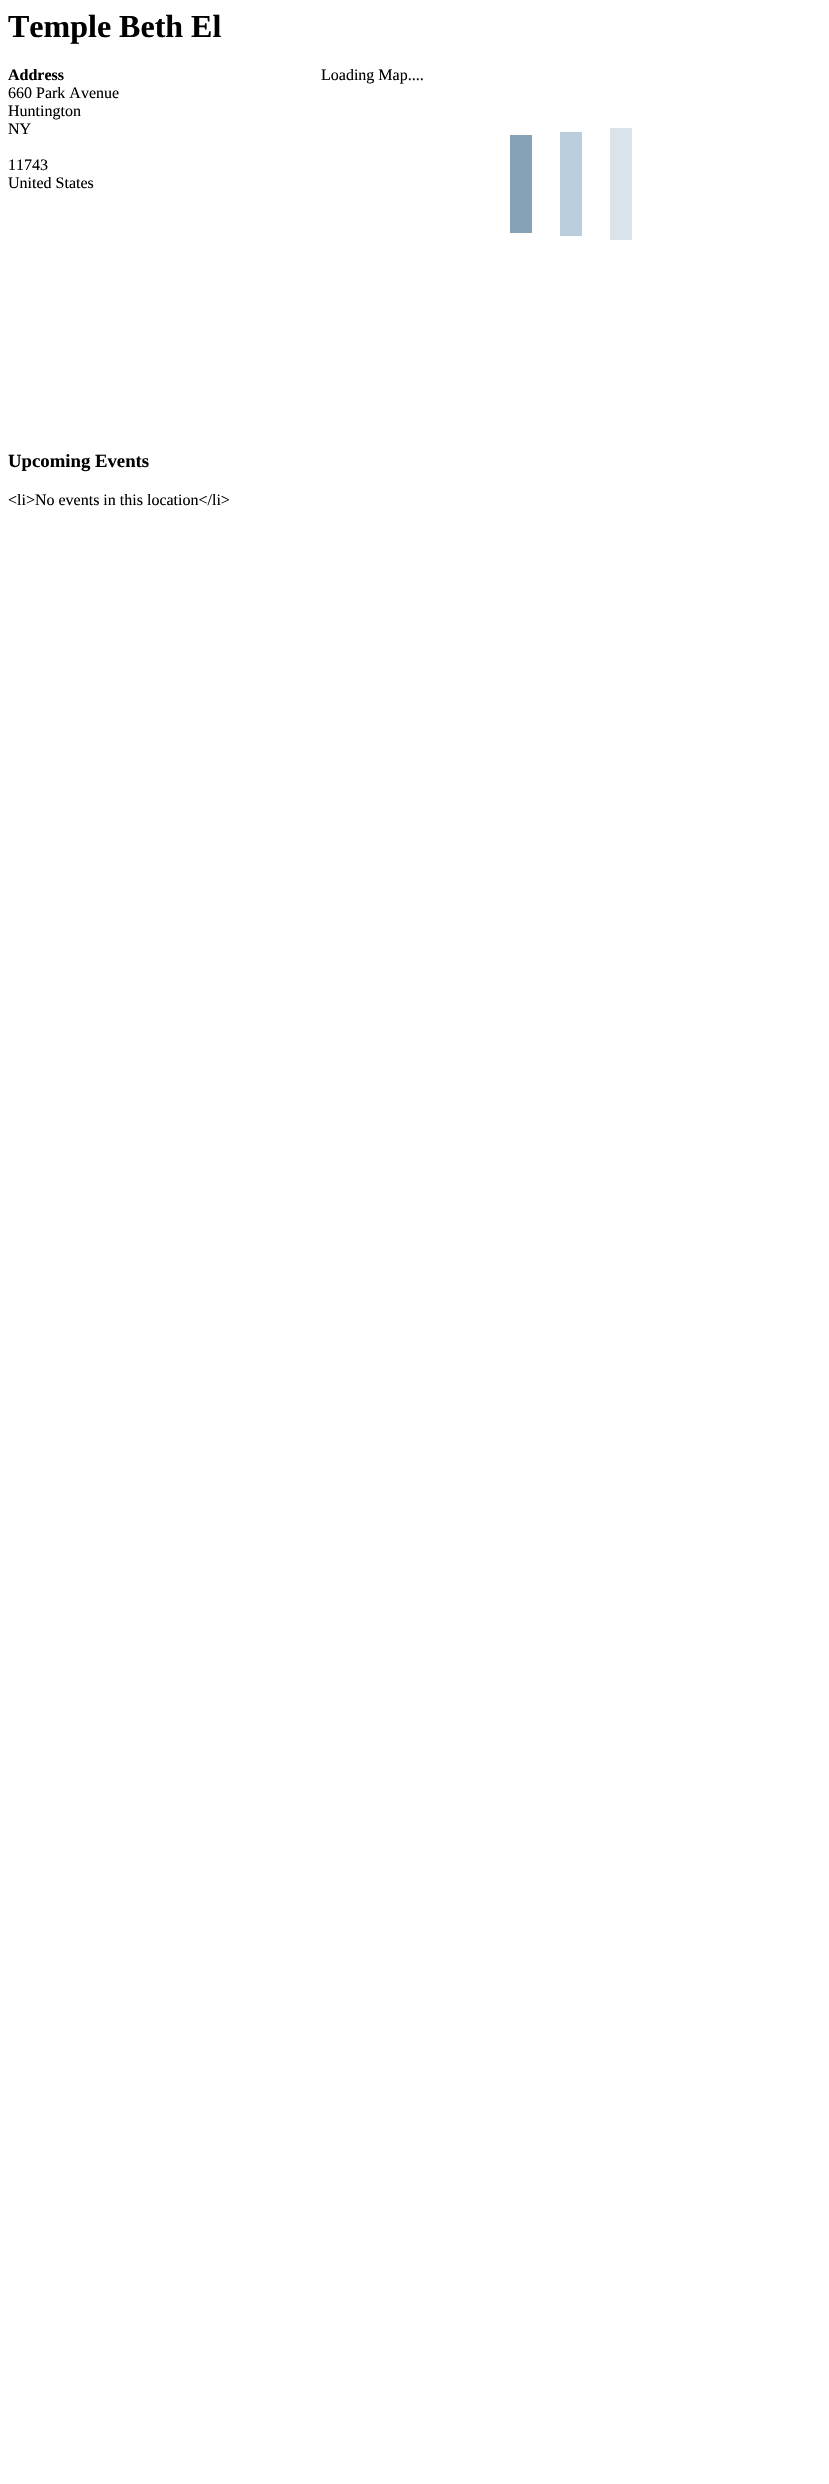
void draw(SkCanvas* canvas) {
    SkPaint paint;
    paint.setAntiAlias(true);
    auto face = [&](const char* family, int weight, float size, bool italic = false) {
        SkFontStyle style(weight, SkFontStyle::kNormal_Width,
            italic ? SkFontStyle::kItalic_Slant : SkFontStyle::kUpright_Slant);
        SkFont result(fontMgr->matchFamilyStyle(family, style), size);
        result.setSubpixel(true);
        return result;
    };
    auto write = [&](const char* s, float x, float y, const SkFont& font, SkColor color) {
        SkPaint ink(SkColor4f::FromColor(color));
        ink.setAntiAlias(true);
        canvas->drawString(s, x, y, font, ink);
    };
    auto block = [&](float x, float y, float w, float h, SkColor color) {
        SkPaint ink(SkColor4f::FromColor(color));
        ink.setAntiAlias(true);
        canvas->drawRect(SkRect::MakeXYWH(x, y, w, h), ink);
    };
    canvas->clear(SK_ColorWHITE);
    auto kFont1 = face("Liberation Serif", 700, 32);
    write("Temple Beth El", 8, 37, kFont1, SK_ColorBLACK);
    auto kFont2 = face("Liberation Serif", 700, 16);
    write("Address", 8, 80, kFont2, SK_ColorBLACK);
    auto kFont3 = face("Liberation Serif", 400, 16);
    write("660 Park Avenue", 8, 98, kFont3, SK_ColorBLACK);
    write("Huntington", 8, 116, kFont3, SK_ColorBLACK);
    write("NY", 8, 134, kFont3, SK_ColorBLACK);
    write("11743", 8, 170, kFont3, SK_ColorBLACK);
    write("United States", 8, 188, kFont3, SK_ColorBLACK);
    write("Loading Map....", 321, 80, kFont3, SK_ColorBLACK);
    block(510, 135, 22, 98, SkColorSetRGB(133, 162, 182));
    block(560, 132, 22, 104, SkColorSetRGB(187, 206, 221));
    block(610, 128, 22, 112, SkColorSetRGB(220, 228, 235));
    auto kFont4 = face("Liberation Serif", 700, 18.75f);
    write("Upcoming Events", 8, 467, kFont4, SK_ColorBLACK);
    write("<li>No events in this location</li>", 8, 505, kFont3, SK_ColorBLACK);
}
